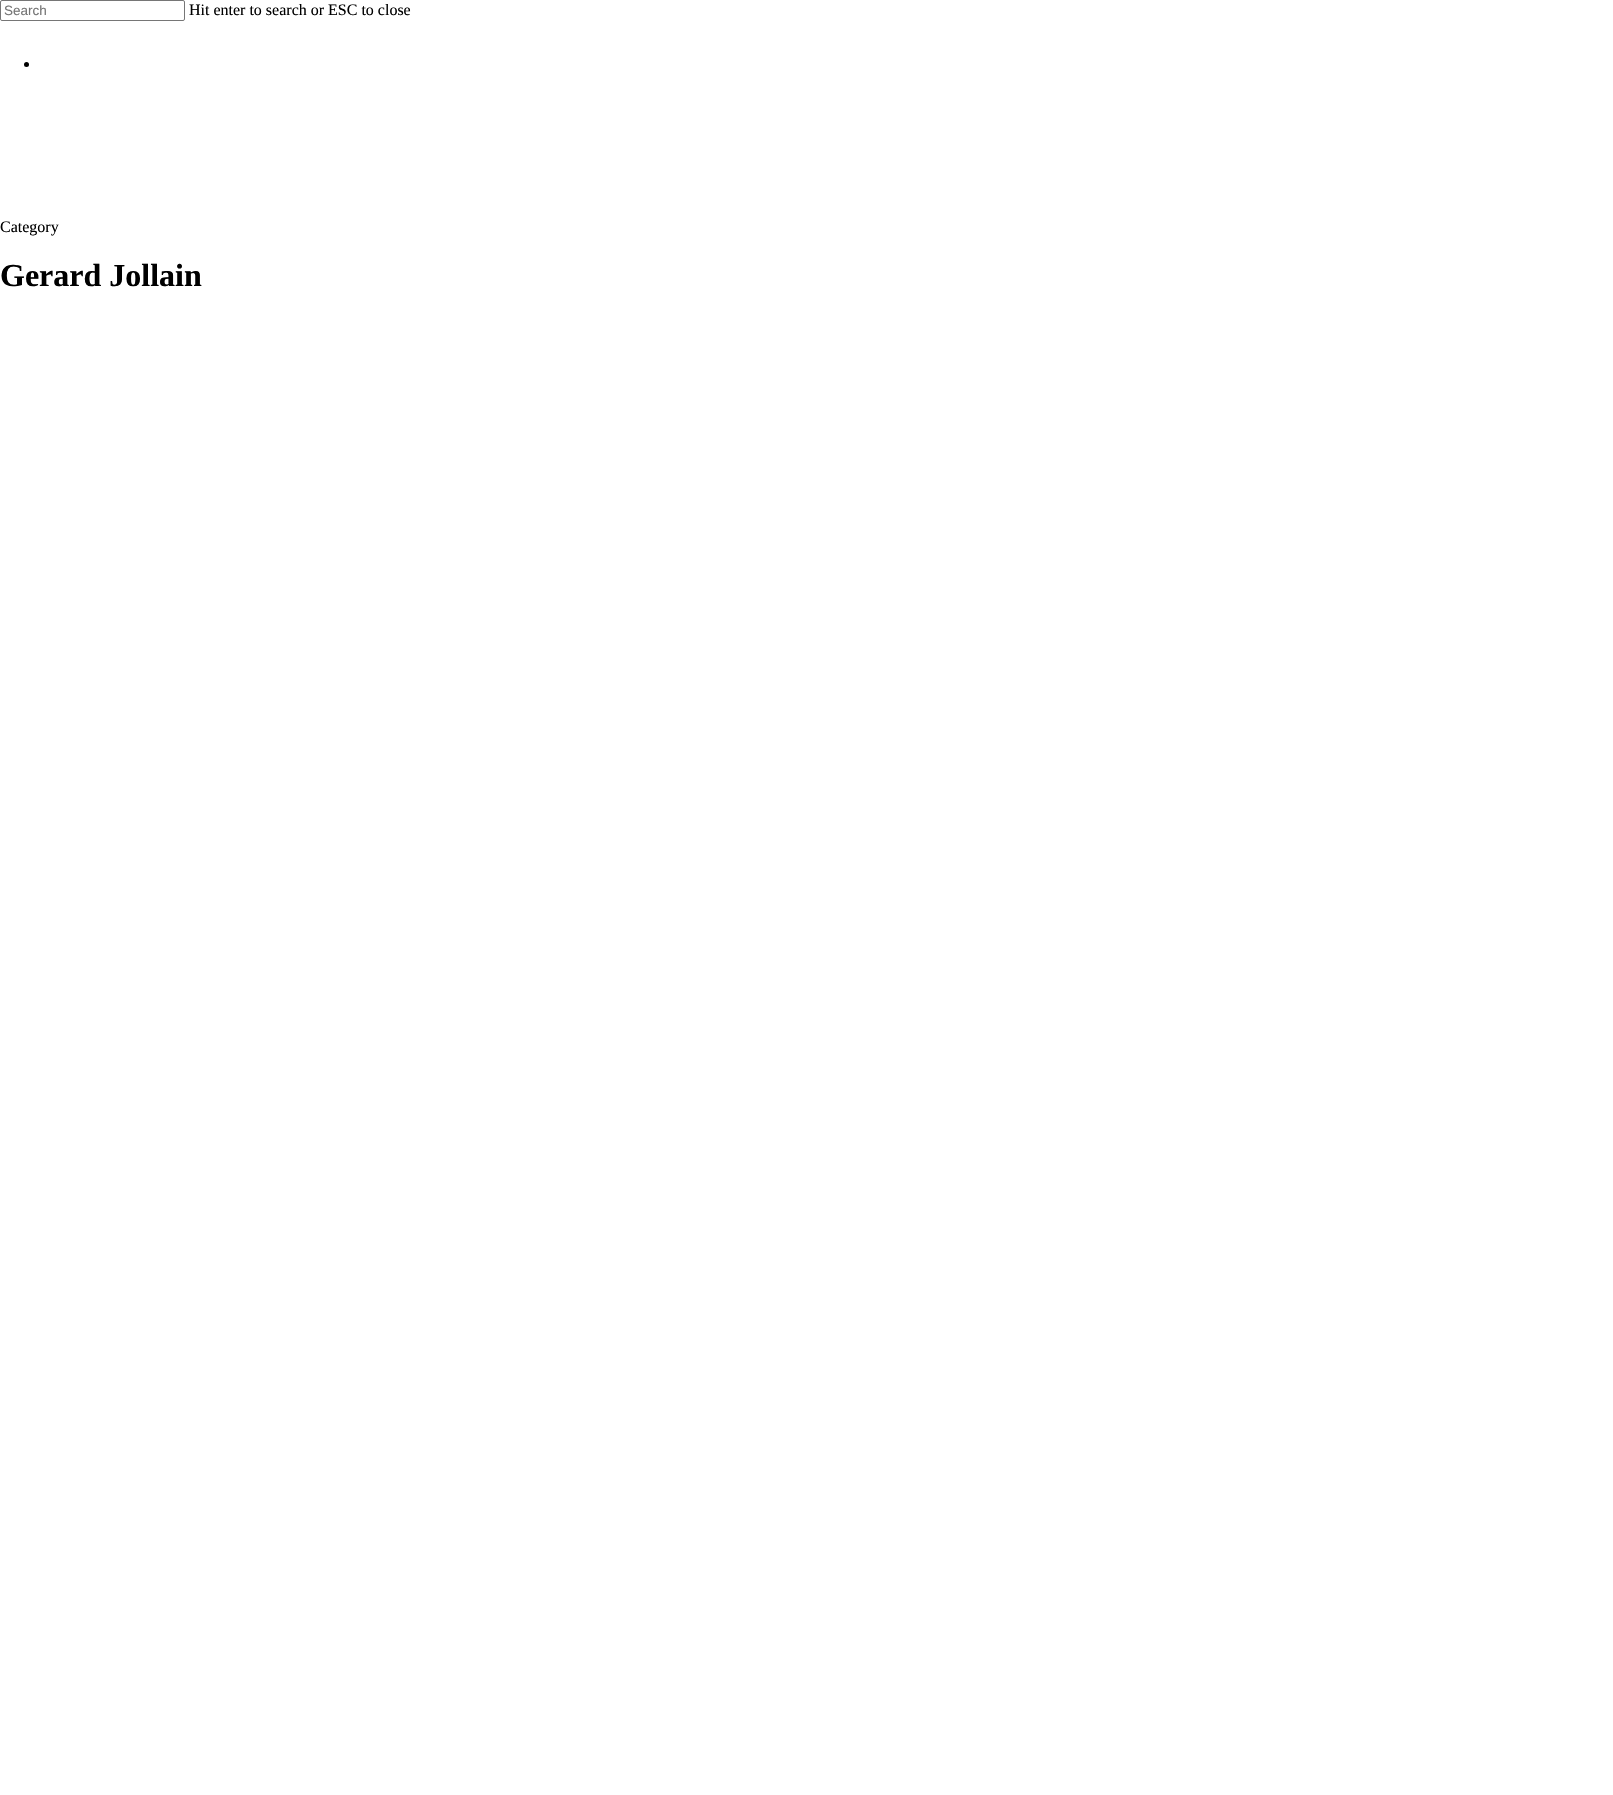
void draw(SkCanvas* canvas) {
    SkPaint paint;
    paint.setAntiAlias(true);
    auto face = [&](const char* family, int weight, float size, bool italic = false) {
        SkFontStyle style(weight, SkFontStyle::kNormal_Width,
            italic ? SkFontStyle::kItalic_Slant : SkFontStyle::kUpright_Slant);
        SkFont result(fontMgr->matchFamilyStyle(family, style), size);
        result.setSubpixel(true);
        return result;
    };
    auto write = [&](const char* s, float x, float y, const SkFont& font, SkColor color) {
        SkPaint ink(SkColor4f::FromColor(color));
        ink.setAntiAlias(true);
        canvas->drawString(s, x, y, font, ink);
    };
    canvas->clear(SK_ColorWHITE);
    paint.setStyle(SkPaint::kStroke_Style);
    paint.setStrokeWidth(1);
    paint.setColor(SkColorSetRGB(118, 118, 118));
    canvas->drawRoundRect(SkRect::MakeXYWH(0.5f, 0.5f, 184, 20), 1.5f, 1.5f, paint);
    auto kFont1 = face("Liberation Sans", 400, 13.5f);
    write("Search", 4, 15, kFont1, SkColorSetRGB(117, 117, 117));
    auto kFont2 = face("Liberation Serif", 400, 16);
    write("Hit enter to search or ESC to close", 189, 15, kFont2, SK_ColorBLACK);
    paint.setStyle(SkPaint::kFill_Style);
    paint.setColor(SK_ColorBLACK);
    canvas->drawCircle(26.5f, 64.5f, 2.5f, paint);
    write("Category", 0, 232, kFont2, SK_ColorBLACK);
    auto kFont3 = face("Liberation Serif", 700, 32);
    write("Gerard Jollain", 0, 286, kFont3, SK_ColorBLACK);
}
